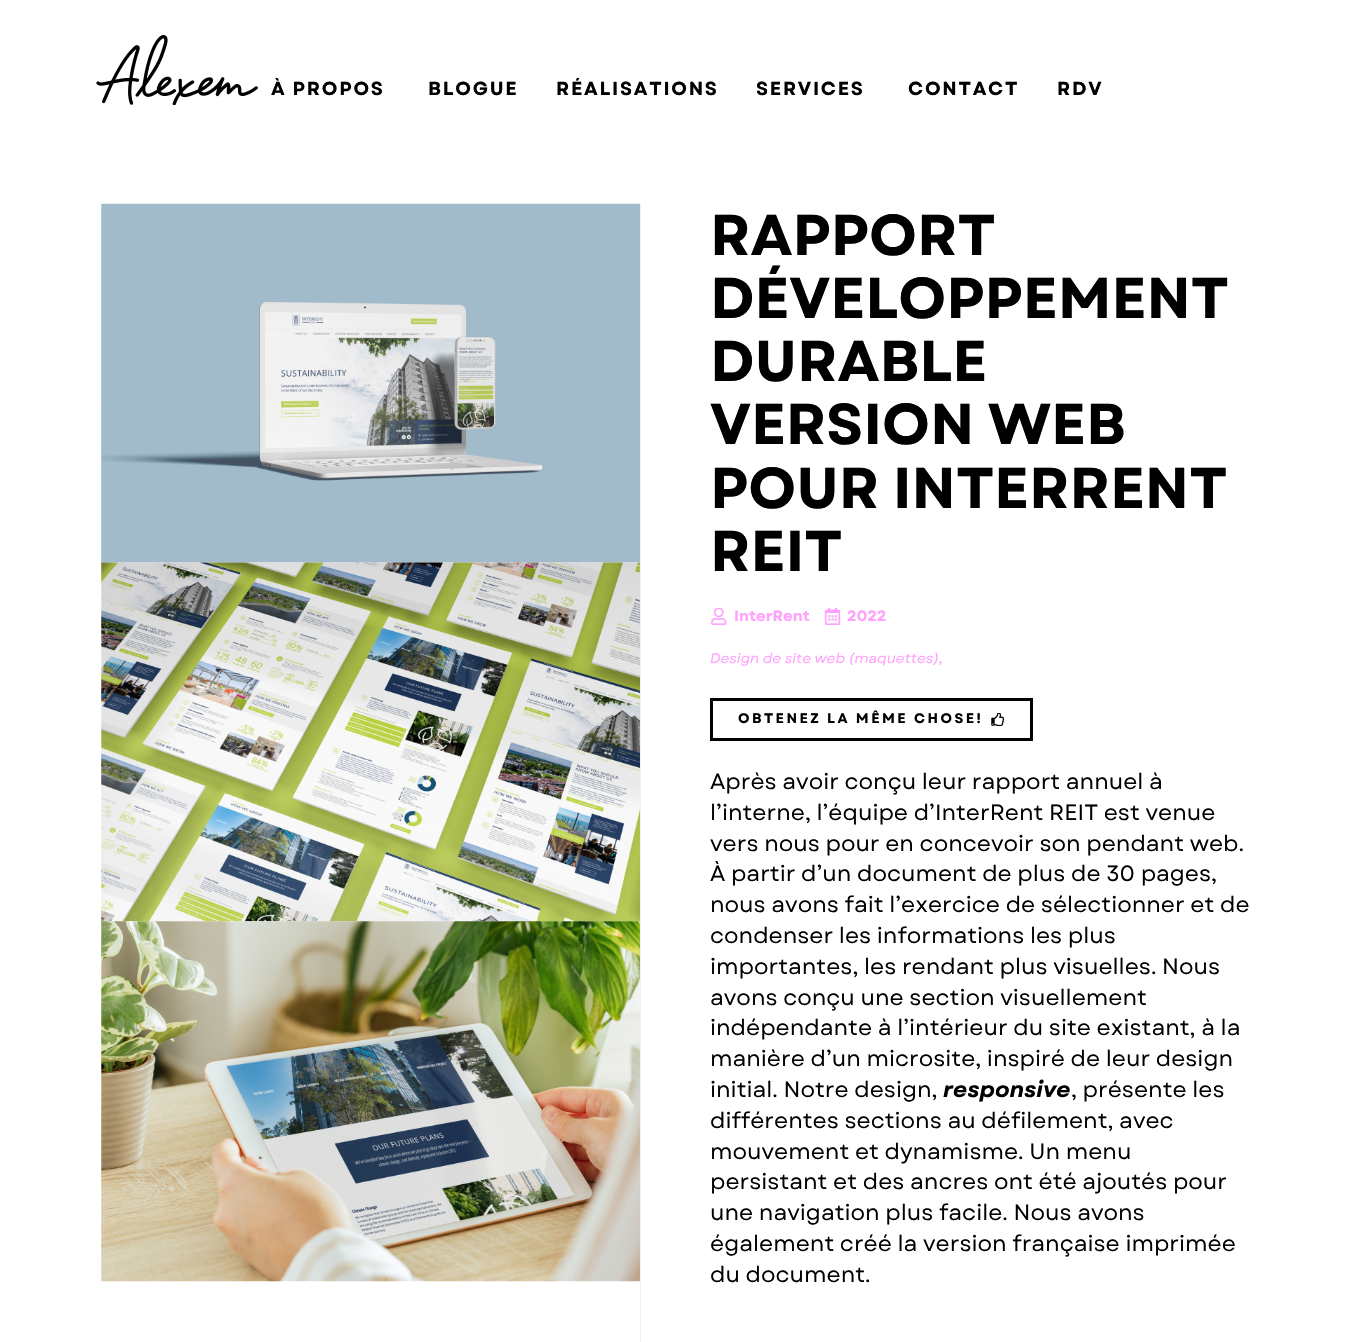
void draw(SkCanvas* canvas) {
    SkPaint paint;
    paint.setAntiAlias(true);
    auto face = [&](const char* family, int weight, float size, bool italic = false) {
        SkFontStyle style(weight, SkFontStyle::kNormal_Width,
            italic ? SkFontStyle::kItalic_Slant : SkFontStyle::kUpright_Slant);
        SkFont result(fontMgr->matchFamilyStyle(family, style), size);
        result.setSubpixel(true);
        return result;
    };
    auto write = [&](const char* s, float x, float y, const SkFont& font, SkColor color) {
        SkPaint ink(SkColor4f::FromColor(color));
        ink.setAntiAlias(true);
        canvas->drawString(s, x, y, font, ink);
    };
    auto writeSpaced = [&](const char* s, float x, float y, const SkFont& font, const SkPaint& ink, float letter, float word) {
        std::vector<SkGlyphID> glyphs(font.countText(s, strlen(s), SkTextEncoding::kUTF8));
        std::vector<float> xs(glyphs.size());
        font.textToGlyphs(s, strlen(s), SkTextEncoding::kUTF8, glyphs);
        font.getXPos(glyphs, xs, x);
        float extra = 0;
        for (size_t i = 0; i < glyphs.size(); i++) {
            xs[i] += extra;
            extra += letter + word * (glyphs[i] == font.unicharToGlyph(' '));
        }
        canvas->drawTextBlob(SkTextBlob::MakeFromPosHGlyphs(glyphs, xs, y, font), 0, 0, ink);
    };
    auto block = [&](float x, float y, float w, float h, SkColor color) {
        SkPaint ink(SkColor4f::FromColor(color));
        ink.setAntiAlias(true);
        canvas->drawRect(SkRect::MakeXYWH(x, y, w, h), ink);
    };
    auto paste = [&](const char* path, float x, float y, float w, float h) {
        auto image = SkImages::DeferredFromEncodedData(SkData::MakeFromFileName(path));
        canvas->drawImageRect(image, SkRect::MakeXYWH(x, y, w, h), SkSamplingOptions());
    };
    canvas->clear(SK_ColorWHITE);
    paste("pic1.png", 96, 35, 162, 70);
    auto kFont1 = face("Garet", 700, 18.75f);
    paint.setColor(SK_ColorBLACK);
    writeSpaced("À PROPOS", 271, 95, kFont1, paint, 1.75f, 0);
    writeSpaced("BLOGUE", 428, 95, kFont1, paint, 1.75f, 0);
    writeSpaced("RÉALISATIONS", 556, 95, kFont1, paint, 1.75f, 0);
    writeSpaced("SERVICES", 756, 95, kFont1, paint, 1.75f, 0);
    writeSpaced("CONTACT", 908, 95, kFont1, paint, 1.75f, 0);
    writeSpaced("RDV", 1057, 95, kFont1, paint, 1.75f, 0);
    block(640, 204, 1, 1138, SkColorSetRGB(242, 242, 242));
    paste("pic2.png", 101, 203, 539, 360);
    paste("pic3.png", 101, 562, 539, 360);
    paste("pic4.png", 101, 921, 539, 361);
    auto kFont2 = face("Garet", 700, 57.5f);
    write("RAPPORT", 710, 255, kFont2, SK_ColorBLACK);
    write("DÉVELOPPEMENT", 710, 318, kFont2, SK_ColorBLACK);
    write("DURABLE", 710, 381, kFont2, SK_ColorBLACK);
    write("VERSION WEB", 710, 444, kFont2, SK_ColorBLACK);
    write("POUR INTERRENT", 710, 508, kFont2, SK_ColorBLACK);
    write("REIT", 710, 571, kFont2, SK_ColorBLACK);
    paste("pic5.png", 711, 608, 16, 17);
    auto kFont3 = face("Garet", 700, 15);
    write("InterRent", 734, 621, kFont3, SkColorSetRGB(255, 161, 253));
    paste("pic6.png", 824, 608, 17, 17);
    write("2022", 847, 621, kFont3, SkColorSetRGB(255, 161, 253));
    auto kFont4 = face("Garet", 400, 13.75f, true);
    write("Design de site web (maquettes),", 710, 663, kFont4, SkColorSetRGB(255, 161, 253));
    paint.setStyle(SkPaint::kStroke_Style);
    paint.setStrokeWidth(3);
    canvas->drawRect(SkRect::MakeXYWH(711.5f, 699.5f, 320, 40), paint);
    auto kFont5 = face("Garet", 700, 13.75f);
    paint.setStyle(SkPaint::kFill_Style);
    writeSpaced("OBTENEZ LA MÊME CHOSE!", 738, 723, kFont5, paint, 2.5f, 0);
    paste("pic7.png", 991, 713, 14, 13);
    auto kFont6 = face("Garet", 400, 22);
    write("Après avoir conçu leur rapport annuel à", 710, 789, kFont6, SK_ColorBLACK);
    write("l’interne, l’équipe d’InterRent REIT est venue", 710, 820, kFont6, SK_ColorBLACK);
    write("vers nous pour en concevoir son pendant web.", 710, 851, kFont6, SK_ColorBLACK);
    write("À partir d’un document de plus de 30 pages,", 710, 881, kFont6, SK_ColorBLACK);
    write("nous avons fait l’exercice de sélectionner et de", 710, 912, kFont6, SK_ColorBLACK);
    write("condenser les informations les plus", 710, 943, kFont6, SK_ColorBLACK);
    write("importantes, les rendant plus visuelles. Nous", 710, 974, kFont6, SK_ColorBLACK);
    write("avons conçu une section visuellement", 710, 1005, kFont6, SK_ColorBLACK);
    write("indépendante à l’intérieur du site existant, à la", 710, 1035, kFont6, SK_ColorBLACK);
    write("manière d’un microsite, inspiré de leur design", 710, 1066, kFont6, SK_ColorBLACK);
    write("initial. Notre design,", 710, 1097, kFont6, SK_ColorBLACK);
    auto kFont7 = face("Garet", 700, 22, true);
    write("responsive", 943, 1097, kFont7, SK_ColorBLACK);
    write(", présente les", 1071, 1097, kFont6, SK_ColorBLACK);
    write("différentes sections au défilement, avec", 710, 1128, kFont6, SK_ColorBLACK);
    write("mouvement et dynamisme. Un menu", 710, 1159, kFont6, SK_ColorBLACK);
    write("persistant et des ancres ont été ajoutés pour", 710, 1189, kFont6, SK_ColorBLACK);
    write("une navigation plus facile. Nous avons", 710, 1220, kFont6, SK_ColorBLACK);
    write("également créé la version française imprimée", 710, 1251, kFont6, SK_ColorBLACK);
    write("du document.", 710, 1282, kFont6, SK_ColorBLACK);
}
